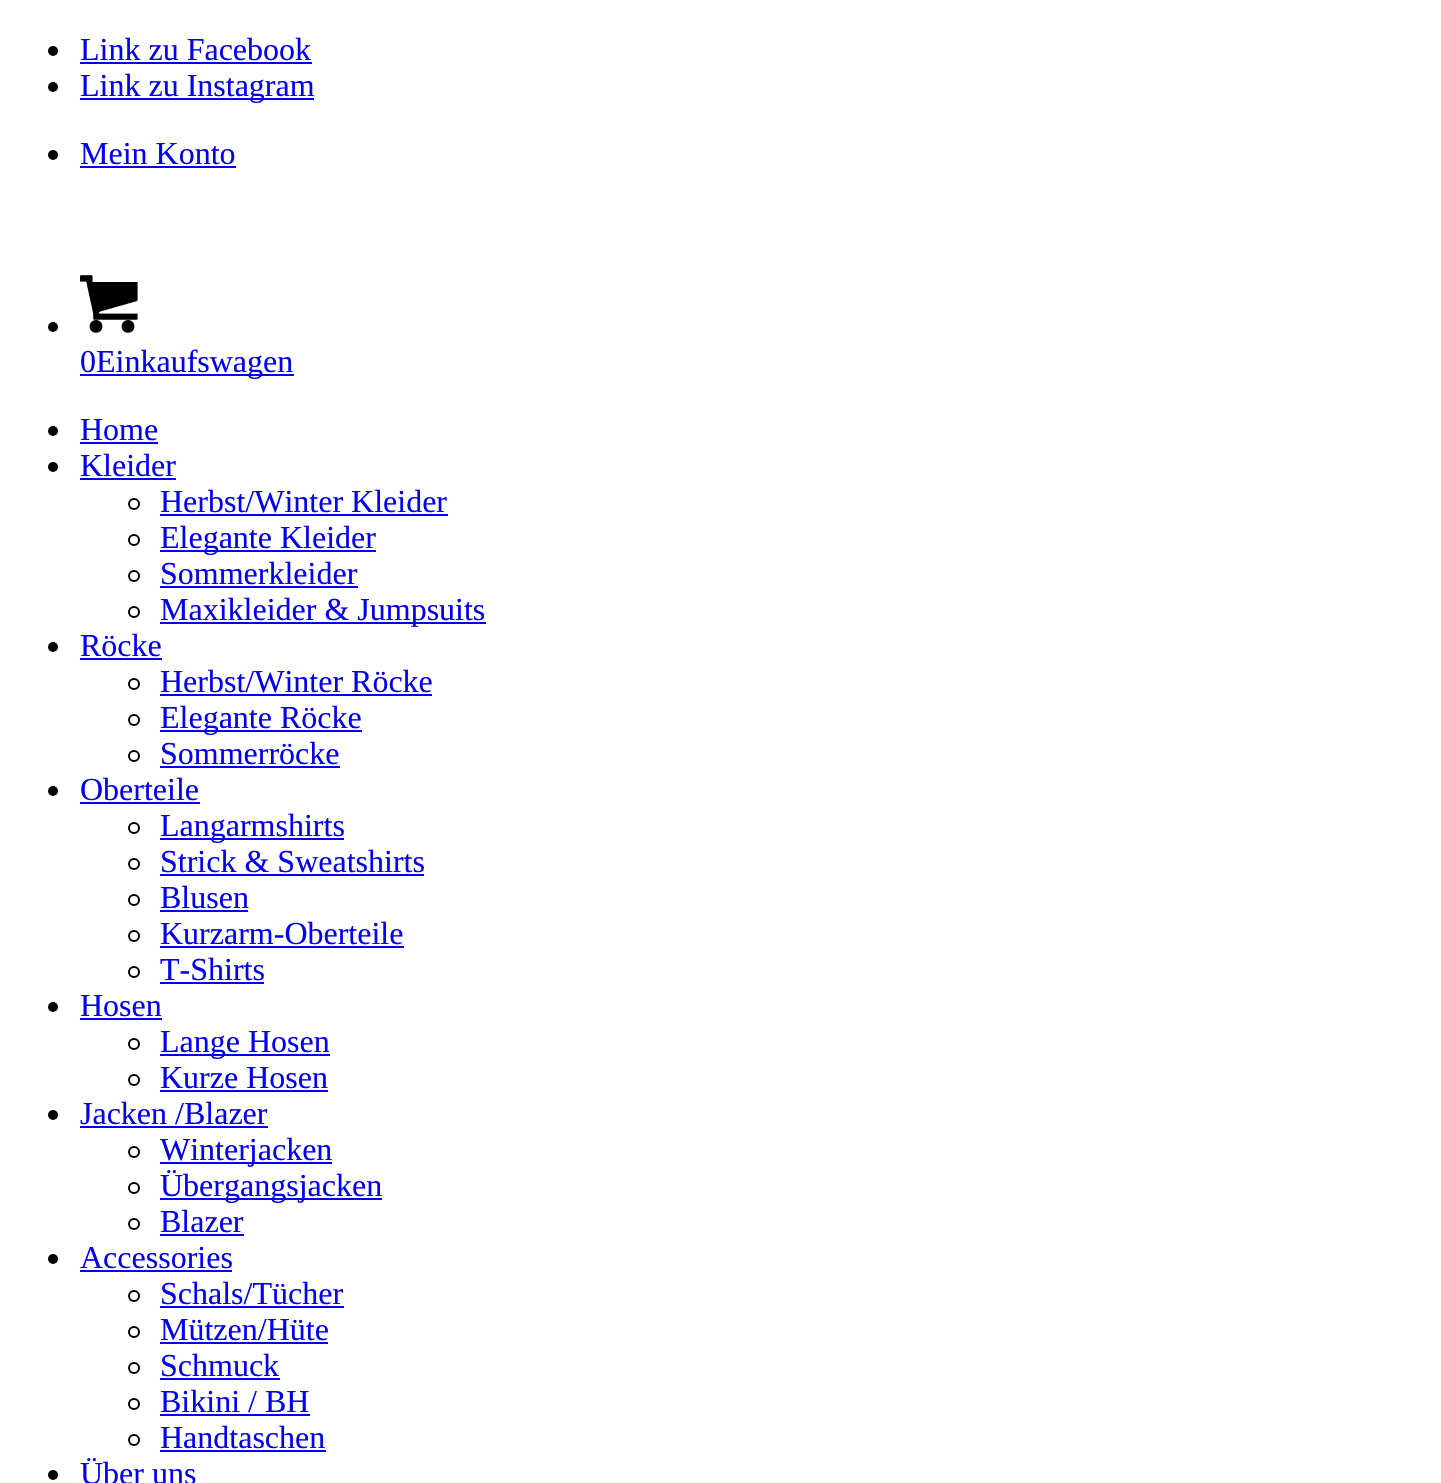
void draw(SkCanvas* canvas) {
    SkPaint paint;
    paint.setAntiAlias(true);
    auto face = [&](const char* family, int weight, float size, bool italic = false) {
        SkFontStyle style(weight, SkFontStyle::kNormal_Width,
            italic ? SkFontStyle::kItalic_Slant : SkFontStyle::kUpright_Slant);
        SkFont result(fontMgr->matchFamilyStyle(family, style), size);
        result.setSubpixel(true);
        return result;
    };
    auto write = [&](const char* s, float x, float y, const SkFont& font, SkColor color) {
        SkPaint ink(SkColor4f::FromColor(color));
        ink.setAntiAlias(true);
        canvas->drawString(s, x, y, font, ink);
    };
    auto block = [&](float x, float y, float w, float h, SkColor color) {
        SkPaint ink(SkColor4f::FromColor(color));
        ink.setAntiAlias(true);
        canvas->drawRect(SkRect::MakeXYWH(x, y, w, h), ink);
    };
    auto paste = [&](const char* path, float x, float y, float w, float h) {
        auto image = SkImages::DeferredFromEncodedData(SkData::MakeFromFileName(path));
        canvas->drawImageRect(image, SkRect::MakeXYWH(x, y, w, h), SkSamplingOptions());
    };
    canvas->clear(SK_ColorWHITE);
    paint.setColor(SK_ColorBLACK);
    canvas->drawCircle(53, 51, 5, paint);
    auto kFont1 = face("Liberation Serif", 400, 32);
    write("Link zu Facebook", 80, 60, kFont1, SkColorSetRGB(0, 0, 238));
    block(80, 62, 232, 2, SkColorSetRGB(0, 0, 238));
    canvas->drawCircle(53, 87, 5, paint);
    block(80, 98, 234, 2, SkColorSetRGB(0, 0, 238));
    write("Link zu Instagram", 80, 96, kFont1, SkColorSetRGB(0, 0, 238));
    canvas->drawCircle(53, 155, 5, paint);
    write("Mein Konto", 80, 164, kFont1, SkColorSetRGB(0, 0, 238));
    block(80, 166, 156, 2, SkColorSetRGB(0, 0, 238));
    canvas->drawCircle(53, 327, 5, paint);
    paste("pic1.png", 80, 275, 58, 58);
    block(80, 374, 214, 2, SkColorSetRGB(0, 0, 238));
    write("0Einkaufswagen", 80, 372, kFont1, SkColorSetRGB(0, 0, 238));
    canvas->drawCircle(53, 431, 5, paint);
    write("Home", 80, 440, kFont1, SkColorSetRGB(0, 0, 238));
    block(80, 442, 78, 2, SkColorSetRGB(0, 0, 238));
    canvas->drawCircle(53, 467, 5, paint);
    write("Kleider", 80, 476, kFont1, SkColorSetRGB(0, 0, 238));
    block(80, 478, 96, 2, SkColorSetRGB(0, 0, 238));
    paint.setStyle(SkPaint::kStroke_Style);
    paint.setStrokeWidth(2);
    canvas->drawCircle(134, 504, 5, paint);
    write("Herbst/Winter Kleider", 160, 512, kFont1, SkColorSetRGB(0, 0, 238));
    block(160, 514, 288, 2, SkColorSetRGB(0, 0, 238));
    canvas->drawCircle(134, 540, 5, paint);
    block(160, 550, 216, 2, SkColorSetRGB(0, 0, 238));
    write("Elegante Kleider", 160, 548, kFont1, SkColorSetRGB(0, 0, 238));
    canvas->drawCircle(134, 576, 5, paint);
    write("Sommerkleider", 160, 584, kFont1, SkColorSetRGB(0, 0, 238));
    block(160, 586, 198, 2, SkColorSetRGB(0, 0, 238));
    canvas->drawCircle(134, 612, 5, paint);
    block(160, 622, 326, 2, SkColorSetRGB(0, 0, 238));
    write("Maxikleider & Jumpsuits", 160, 620, kFont1, SkColorSetRGB(0, 0, 238));
    paint.setStyle(SkPaint::kFill_Style);
    canvas->drawCircle(53, 647, 5, paint);
    write("Röcke", 80, 656, kFont1, SkColorSetRGB(0, 0, 238));
    block(80, 658, 82, 2, SkColorSetRGB(0, 0, 238));
    paint.setStyle(SkPaint::kStroke_Style);
    canvas->drawCircle(134, 684, 5, paint);
    write("Herbst/Winter Röcke", 160, 692, kFont1, SkColorSetRGB(0, 0, 238));
    block(160, 694, 272, 2, SkColorSetRGB(0, 0, 238));
    canvas->drawCircle(134, 720, 5, paint);
    block(160, 730, 202, 2, SkColorSetRGB(0, 0, 238));
    write("Elegante Röcke", 160, 728, kFont1, SkColorSetRGB(0, 0, 238));
    canvas->drawCircle(134, 756, 5, paint);
    write("Sommerröcke", 160, 764, kFont1, SkColorSetRGB(0, 0, 238));
    block(160, 766, 180, 2, SkColorSetRGB(0, 0, 238));
    paint.setStyle(SkPaint::kFill_Style);
    canvas->drawCircle(53, 791, 5, paint);
    write("Oberteile", 80, 800, kFont1, SkColorSetRGB(0, 0, 238));
    block(80, 802, 120, 2, SkColorSetRGB(0, 0, 238));
    paint.setStyle(SkPaint::kStroke_Style);
    canvas->drawCircle(134, 828, 5, paint);
    block(160, 838, 184, 2, SkColorSetRGB(0, 0, 238));
    write("Langarmshirts", 160, 836, kFont1, SkColorSetRGB(0, 0, 238));
    canvas->drawCircle(134, 864, 5, paint);
    write("Strick & Sweatshirts", 160, 872, kFont1, SkColorSetRGB(0, 0, 238));
    block(160, 874, 264, 2, SkColorSetRGB(0, 0, 238));
    canvas->drawCircle(134, 900, 5, paint);
    write("Blusen", 160, 908, kFont1, SkColorSetRGB(0, 0, 238));
    block(160, 910, 88, 2, SkColorSetRGB(0, 0, 238));
    canvas->drawCircle(134, 936, 5, paint);
    write("Kurzarm-Oberteile", 160, 944, kFont1, SkColorSetRGB(0, 0, 238));
    block(160, 946, 244, 2, SkColorSetRGB(0, 0, 238));
    canvas->drawCircle(134, 972, 5, paint);
    write("T-Shirts", 160, 980, kFont1, SkColorSetRGB(0, 0, 238));
    block(160, 982, 104, 2, SkColorSetRGB(0, 0, 238));
    paint.setStyle(SkPaint::kFill_Style);
    canvas->drawCircle(53, 1007, 5, paint);
    write("Hosen", 80, 1016, kFont1, SkColorSetRGB(0, 0, 238));
    block(80, 1018, 82, 2, SkColorSetRGB(0, 0, 238));
    paint.setStyle(SkPaint::kStroke_Style);
    canvas->drawCircle(134, 1044, 5, paint);
    block(160, 1054, 170, 2, SkColorSetRGB(0, 0, 238));
    write("Lange Hosen", 160, 1052, kFont1, SkColorSetRGB(0, 0, 238));
    canvas->drawCircle(134, 1080, 5, paint);
    write("Kurze Hosen", 160, 1088, kFont1, SkColorSetRGB(0, 0, 238));
    block(160, 1090, 168, 2, SkColorSetRGB(0, 0, 238));
    paint.setStyle(SkPaint::kFill_Style);
    canvas->drawCircle(53, 1115, 5, paint);
    write("Jacken /Blazer", 80, 1124, kFont1, SkColorSetRGB(0, 0, 238));
    block(80, 1126, 188, 2, SkColorSetRGB(0, 0, 238));
    paint.setStyle(SkPaint::kStroke_Style);
    canvas->drawCircle(134, 1152, 5, paint);
    block(160, 1162, 172, 2, SkColorSetRGB(0, 0, 238));
    write("Winterjacken", 160, 1160, kFont1, SkColorSetRGB(0, 0, 238));
    canvas->drawCircle(134, 1188, 5, paint);
    block(160, 1198, 222, 2, SkColorSetRGB(0, 0, 238));
    write("Übergangsjacken", 160, 1196, kFont1, SkColorSetRGB(0, 0, 238));
    canvas->drawCircle(134, 1224, 5, paint);
    write("Blazer", 160, 1232, kFont1, SkColorSetRGB(0, 0, 238));
    block(160, 1234, 84, 2, SkColorSetRGB(0, 0, 238));
    paint.setStyle(SkPaint::kFill_Style);
    canvas->drawCircle(53, 1259, 5, paint);
    write("Accessories", 80, 1268, kFont1, SkColorSetRGB(0, 0, 238));
    block(80, 1270, 152, 2, SkColorSetRGB(0, 0, 238));
    paint.setStyle(SkPaint::kStroke_Style);
    canvas->drawCircle(134, 1296, 5, paint);
    write("Schals/Tücher", 160, 1304, kFont1, SkColorSetRGB(0, 0, 238));
    block(160, 1306, 184, 2, SkColorSetRGB(0, 0, 238));
    canvas->drawCircle(134, 1332, 5, paint);
    write("Mützen/Hüte", 160, 1340, kFont1, SkColorSetRGB(0, 0, 238));
    block(160, 1342, 168, 2, SkColorSetRGB(0, 0, 238));
    canvas->drawCircle(134, 1368, 5, paint);
    write("Schmuck", 160, 1376, kFont1, SkColorSetRGB(0, 0, 238));
    block(160, 1378, 120, 2, SkColorSetRGB(0, 0, 238));
    canvas->drawCircle(134, 1404, 5, paint);
    write("Bikini / BH", 160, 1412, kFont1, SkColorSetRGB(0, 0, 238));
    block(160, 1414, 150, 2, SkColorSetRGB(0, 0, 238));
    canvas->drawCircle(134, 1440, 5, paint);
    write("Handtaschen", 160, 1448, kFont1, SkColorSetRGB(0, 0, 238));
    block(160, 1450, 166, 2, SkColorSetRGB(0, 0, 238));
    paint.setStyle(SkPaint::kFill_Style);
    canvas->drawCircle(53, 1475, 5, paint);
    write("Über uns", 80, 1484, kFont1, SkColorSetRGB(0, 0, 238));
}
